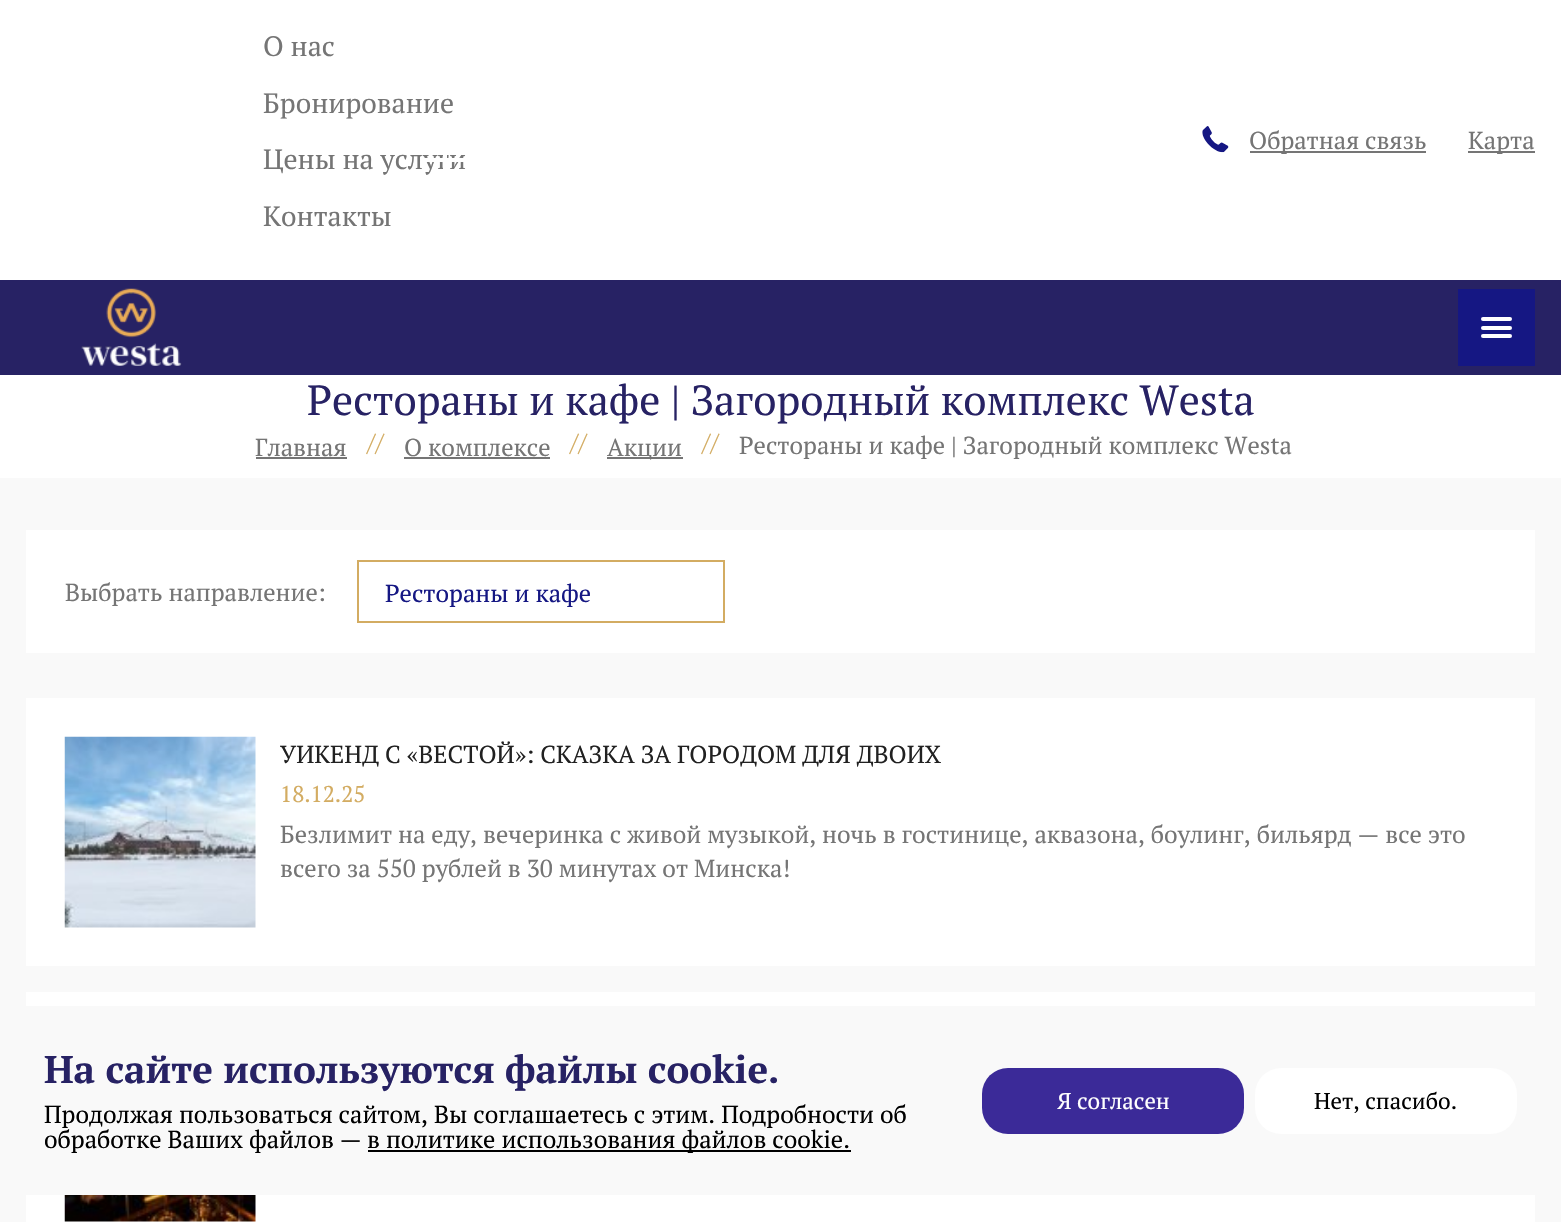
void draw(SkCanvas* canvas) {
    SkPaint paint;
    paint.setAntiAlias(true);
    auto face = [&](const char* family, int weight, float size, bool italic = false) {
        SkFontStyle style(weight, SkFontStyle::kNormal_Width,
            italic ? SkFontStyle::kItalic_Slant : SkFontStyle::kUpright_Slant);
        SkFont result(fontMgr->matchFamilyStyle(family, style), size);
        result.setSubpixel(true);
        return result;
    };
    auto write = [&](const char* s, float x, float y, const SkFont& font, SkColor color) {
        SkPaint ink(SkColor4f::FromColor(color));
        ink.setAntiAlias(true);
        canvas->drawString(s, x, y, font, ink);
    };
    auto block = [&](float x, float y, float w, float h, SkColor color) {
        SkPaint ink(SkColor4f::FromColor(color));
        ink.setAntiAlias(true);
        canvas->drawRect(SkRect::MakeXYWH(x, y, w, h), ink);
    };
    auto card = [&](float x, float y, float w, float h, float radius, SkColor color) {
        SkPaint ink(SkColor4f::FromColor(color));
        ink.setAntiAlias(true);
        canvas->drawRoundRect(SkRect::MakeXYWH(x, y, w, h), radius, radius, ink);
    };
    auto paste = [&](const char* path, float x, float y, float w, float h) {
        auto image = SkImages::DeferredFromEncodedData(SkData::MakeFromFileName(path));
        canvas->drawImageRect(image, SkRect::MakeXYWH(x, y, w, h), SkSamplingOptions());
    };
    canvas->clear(SkColorSetRGB(249, 249, 249));
    block(0, 0, 1561, 280, SK_ColorWHITE);
    auto kFont1 = face("PT Serif", 400, 28);
    write("О нас", 263, 56, kFont1, SkColorSetRGB(117, 117, 117));
    write("Бронирование", 263, 113, kFont1, SkColorSetRGB(117, 117, 117));
    write("Цены на услуги", 263, 169, kFont1, SkColorSetRGB(117, 117, 117));
    block(422, 158, 44, 4, SK_ColorWHITE);
    block(443, 155, 4, 14, SK_ColorWHITE);
    write("Контакты", 263, 226, kFont1, SkColorSetRGB(117, 117, 117));
    paste("pic1.png", 1202, 126, 27, 27);
    block(1250, 151, 176, 2, SkColorSetRGB(117, 117, 117));
    auto kFont2 = face("PT Serif", 400, 24.5f);
    write("Обратная связь", 1249, 149, kFont2, SkColorSetRGB(117, 117, 117));
    block(1468, 151, 67, 2, SkColorSetRGB(117, 117, 117));
    write("Карта", 1468, 149, kFont2, SkColorSetRGB(117, 117, 117));
    block(0, 280, 1561, 95, SkColorSetRGB(39, 34, 100));
    paste("pic2.png", 81, 288, 101, 78);
    block(1458, 289, 77, 77, SkColorSetRGB(21, 23, 131));
    card(1481, 317, 31, 4, 2, SK_ColorWHITE);
    card(1481, 326, 31, 4, 2, SK_ColorWHITE);
    card(1481, 334, 31, 4, 2, SK_ColorWHITE);
    block(0, 375, 1561, 103, SK_ColorWHITE);
    auto kFont3 = face("PT Serif", 400, 42);
    write("Рестораны и кафе | Загородный комплекс Westa", 307, 415, kFont3, SkColorSetRGB(39, 34, 100));
    write("Главная", 255, 456, kFont2, SkColorSetRGB(117, 117, 117));
    block(256, 457, 91, 2, SkColorSetRGB(117, 117, 117));
    write("//", 367, 451, kFont2, SkColorSetRGB(211, 172, 98));
    write("О комплексе", 404, 456, kFont2, SkColorSetRGB(117, 117, 117));
    block(404, 457, 146, 2, SkColorSetRGB(117, 117, 117));
    write("//", 570, 451, kFont2, SkColorSetRGB(211, 172, 98));
    block(607, 457, 76, 2, SkColorSetRGB(117, 117, 117));
    write("Акции", 607, 456, kFont2, SkColorSetRGB(117, 117, 117));
    write("//", 702, 451, kFont2, SkColorSetRGB(211, 172, 98));
    write("Рестораны и кафе | Загородный комплекс Westa", 739, 454, kFont2, SkColorSetRGB(117, 117, 117));
    block(26, 530, 1509, 123, SK_ColorWHITE);
    write("Выбрать направление:", 65, 601, kFont2, SkColorSetRGB(117, 117, 117));
    paint.setStyle(SkPaint::kStroke_Style);
    paint.setStrokeWidth(2);
    paint.setColor(SkColorSetRGB(211, 172, 98));
    canvas->drawRect(SkRect::MakeXYWH(358, 561, 366, 61), paint);
    write("Рестораны и кафе", 385, 602, kFont2, SkColorSetRGB(21, 23, 131));
    block(26, 698, 1509, 268, SK_ColorWHITE);
    paste("pic3.png", 64, 736, 192, 192);
    write("УИКЕНД С «ВЕСТОЙ»: СКАЗКА ЗА ГОРОДОМ ДЛЯ ДВОИХ", 280, 763, kFont2, SkColorSetRGB(33, 33, 33));
    auto kFont4 = face("PT Serif", 400, 22.75f);
    write("18.12.25", 280, 802, kFont4, SkColorSetRGB(211, 172, 98));
    write("Безлимит на еду, вечеринка с живой музыкой, ночь в гостинице, аквазона, боулинг, бильярд — все это", 280, 843, kFont2, SkColorSetRGB(117, 117, 117));
    write("всего за 550 рублей в 30 минутах от Минска!", 280, 877, kFont2, SkColorSetRGB(117, 117, 117));
    block(26, 992, 1509, 230, SK_ColorWHITE);
    paste("pic4.png", 64, 1195, 192, 27);
    card(0, 1006, 1561, 189, 26, SkColorSetRGB(249, 249, 249));
    auto kFont5 = face("PT Serif", 700, 38.5f);
    write("На сайте используются файлы cookie.", 44, 1083, kFont5, SkColorSetRGB(39, 34, 100));
    write("Продолжая пользоваться сайтом, Вы соглашаетесь с этим. Подробности об", 44, 1123, kFont2, SK_ColorBLACK);
    write("обработке Ваших файлов —", 44, 1148, kFont2, SK_ColorBLACK);
    block(368, 1150, 483, 2, SK_ColorBLACK);
    write("в политике использования файлов cookie.", 367, 1148, kFont2, SK_ColorBLACK);
    card(982, 1068, 262, 66, 26, SkColorSetRGB(59, 42, 152));
    write("Я согласен", 1057, 1109, kFont4, SK_ColorWHITE);
    card(1255, 1068, 262, 66, 26, SK_ColorWHITE);
    write("Нет, спасибо.", 1314, 1109, kFont4, SK_ColorBLACK);
}
